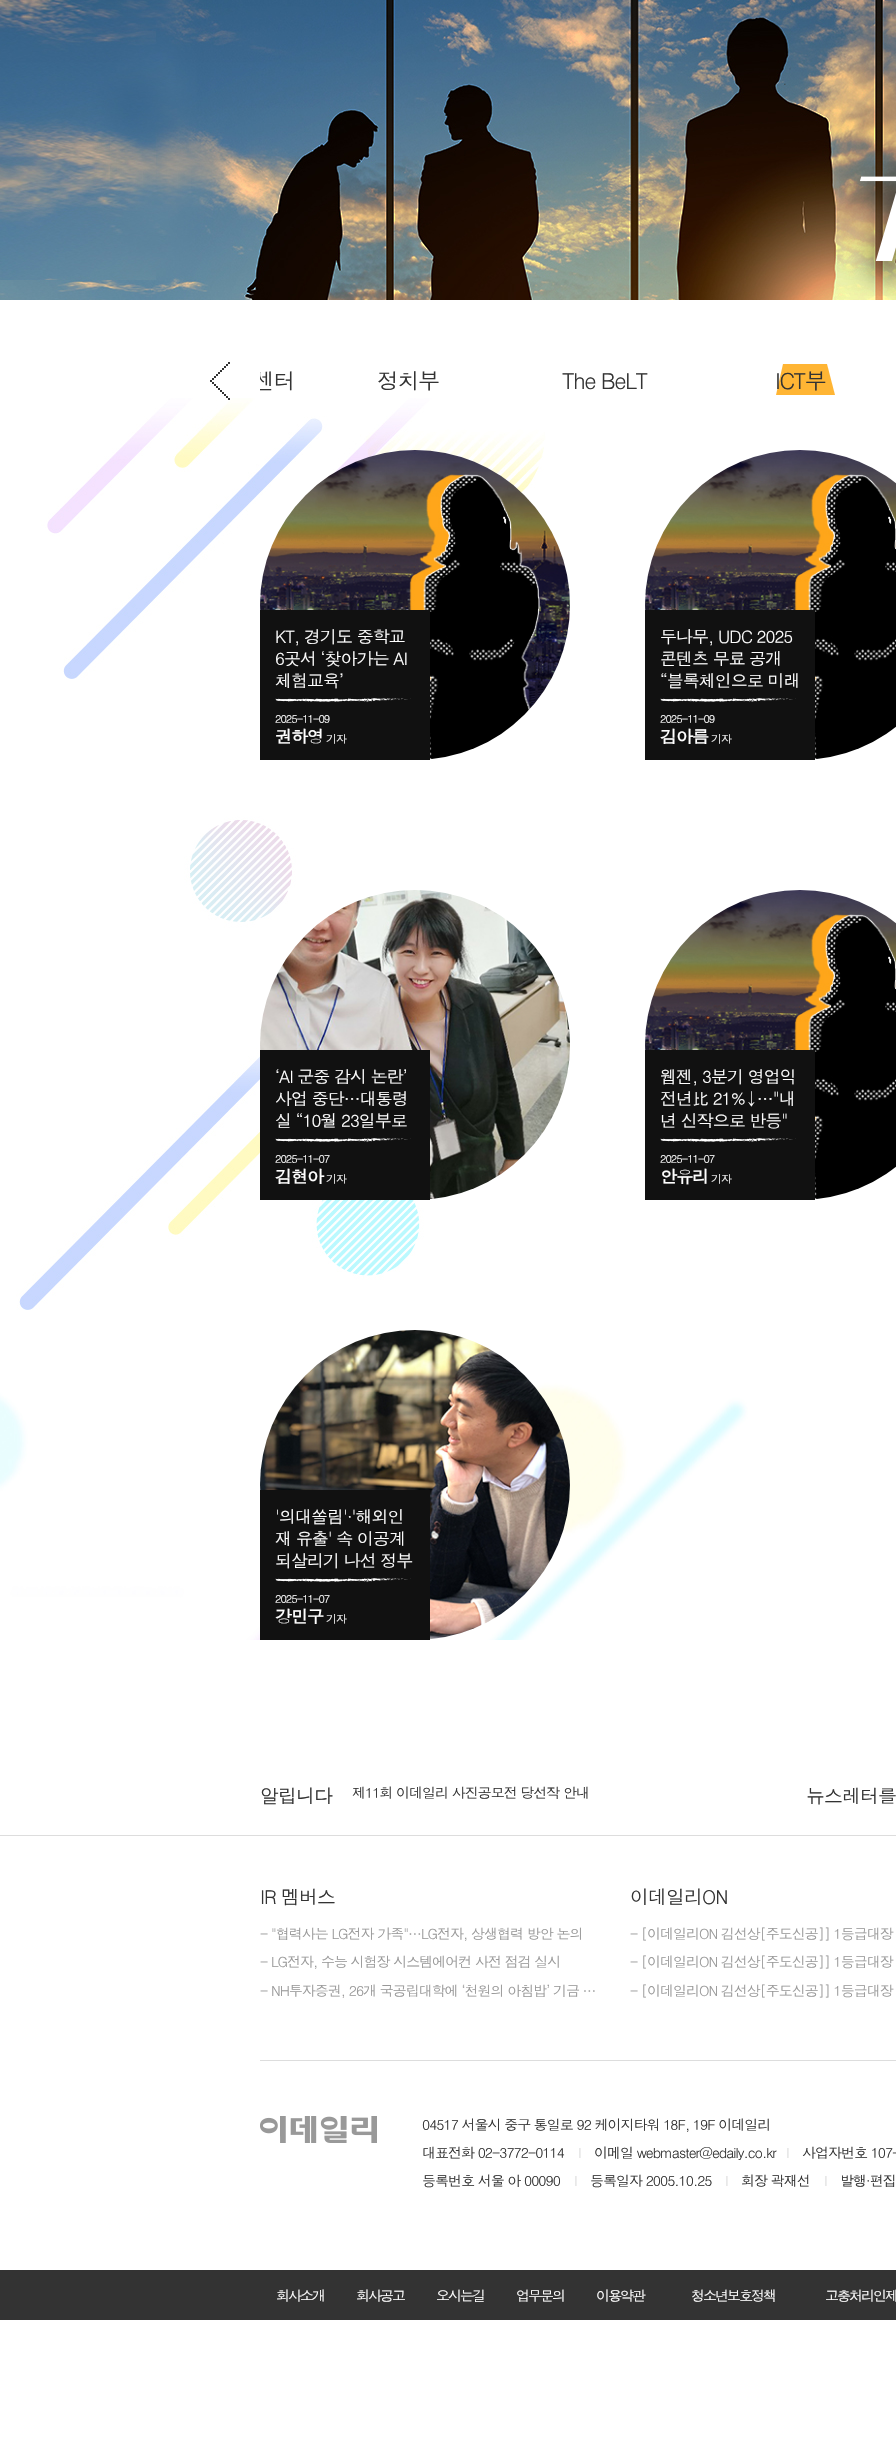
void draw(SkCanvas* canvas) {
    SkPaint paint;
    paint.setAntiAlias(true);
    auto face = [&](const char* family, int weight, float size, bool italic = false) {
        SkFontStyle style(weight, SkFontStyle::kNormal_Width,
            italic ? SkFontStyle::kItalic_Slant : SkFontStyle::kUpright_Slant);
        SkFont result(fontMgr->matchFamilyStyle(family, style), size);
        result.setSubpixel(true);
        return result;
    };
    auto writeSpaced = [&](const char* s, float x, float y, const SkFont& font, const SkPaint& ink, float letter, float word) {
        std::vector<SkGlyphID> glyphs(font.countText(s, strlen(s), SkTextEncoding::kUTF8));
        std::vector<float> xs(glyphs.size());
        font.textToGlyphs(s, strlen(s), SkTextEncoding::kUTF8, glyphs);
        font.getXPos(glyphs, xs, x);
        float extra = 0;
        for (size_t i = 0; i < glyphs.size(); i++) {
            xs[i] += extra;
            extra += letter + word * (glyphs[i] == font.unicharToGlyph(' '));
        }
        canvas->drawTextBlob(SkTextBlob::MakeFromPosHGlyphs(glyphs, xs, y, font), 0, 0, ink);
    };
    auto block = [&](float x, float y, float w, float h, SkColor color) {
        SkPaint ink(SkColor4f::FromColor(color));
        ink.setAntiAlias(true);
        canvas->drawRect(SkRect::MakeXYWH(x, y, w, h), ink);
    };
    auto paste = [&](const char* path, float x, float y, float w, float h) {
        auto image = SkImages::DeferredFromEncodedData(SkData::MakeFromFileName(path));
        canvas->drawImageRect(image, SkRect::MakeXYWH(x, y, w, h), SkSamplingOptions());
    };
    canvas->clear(SK_ColorWHITE);
    paste("pic1.png", 0, 0, 896, 300);
    paste("pic2.png", 839, 161, 57, 135);
    paste("pic3.png", 0, 1310, 896, 330);
    paste("pic4.png", 0, 398, 896, 912);
    paste("pic5.png", 210, 362, 20, 38);
    canvas->save();
    canvas->clipRect(SkRect::MakeXYWH(260, 360, 50, 40));
    auto kFont1 = face("Dotum", 400, 22);
    paint.setColor(SkColorSetRGB(51, 51, 51));
    writeSpaced("센터", 253, 389, kFont1, paint, -1.5f, 0);
    canvas->restore();
    writeSpaced("정치부", 377, 389, kFont1, paint, -1.5f, 0);
    writeSpaced("The BeLT", 562, 389, kFont1, paint, -1.5f, 0);
    paint.setColor(SkColorSetRGB(255, 181, 52));
    canvas->drawPath(SkPathBuilder().moveTo(835, 395).lineTo(776, 395).lineTo(783, 364).lineTo(827, 364).close().detach(), paint);
    paint.setColor(SkColorSetRGB(51, 51, 51));
    writeSpaced("ICT부", 775, 389, kFont1, paint, -1.5f, 0);
    paste("pic6.png", 260, 450, 310, 310);
    block(260, 610, 170, 150, SkColorSetRGB(17, 17, 17));
    auto kFont2 = face("Dotum", 400, 17);
    paint.setColor(SK_ColorWHITE);
    writeSpaced("KT, 경기도 중학교", 275, 643, kFont2, paint, -1, 0);
    writeSpaced("6곳서 ‘찾아가는 AI", 275, 665, kFont2, paint, -1, 0);
    writeSpaced("체험교육’", 275, 687, kFont2, paint, -1, 0);
    paste("pic7.png", 275, 698, 136, 4);
    auto kFont3 = face("Dotum", 400, 11);
    writeSpaced("2025-11-09", 275, 723, kFont3, paint, -1, 0);
    auto kFont4 = face("Dotum", 700, 17);
    writeSpaced("권하영", 275, 743, kFont4, paint, -1, 0);
    writeSpaced("기자", 326, 743, kFont3, paint, -1, 0);
    paste("pic8.png", 645, 450, 251, 310);
    block(645, 610, 170, 150, SkColorSetRGB(17, 17, 17));
    writeSpaced("두나무, UDC 2025", 660, 643, kFont2, paint, -1, 0);
    writeSpaced("콘텐츠 무료 공개", 660, 665, kFont2, paint, -1, 0);
    writeSpaced("“블록체인으로 미래", 660, 687, kFont2, paint, -1, 0);
    paste("pic7.png", 660, 698, 136, 4);
    writeSpaced("2025-11-09", 660, 723, kFont3, paint, -1, 0);
    writeSpaced("김아름", 660, 743, kFont4, paint, -1, 0);
    writeSpaced("기자", 711, 743, kFont3, paint, -1, 0);
    paste("pic9.png", 260, 890, 310, 310);
    block(260, 1050, 170, 150, SkColorSetRGB(17, 17, 17));
    writeSpaced("‘AI 군중 감시 논란’", 275, 1083, kFont2, paint, -1, 0);
    writeSpaced("사업 중단…대통령", 275, 1105, kFont2, paint, -1, 0);
    writeSpaced("실 “10월 23일부로", 275, 1127, kFont2, paint, -1, 0);
    paste("pic7.png", 275, 1138, 136, 4);
    writeSpaced("2025-11-07", 275, 1163, kFont3, paint, -1, 0);
    writeSpaced("김현아", 275, 1183, kFont4, paint, -1, 0);
    writeSpaced("기자", 326, 1183, kFont3, paint, -1, 0);
    paste("pic10.png", 645, 890, 251, 310);
    block(645, 1050, 170, 150, SkColorSetRGB(17, 17, 17));
    writeSpaced("웹젠, 3분기 영업익", 660, 1083, kFont2, paint, -1, 0);
    writeSpaced("전년比 21%↓…\"내", 660, 1105, kFont2, paint, -1, 0);
    writeSpaced("년 신작으로 반등\"", 660, 1127, kFont2, paint, -1, 0);
    paste("pic7.png", 660, 1138, 136, 4);
    writeSpaced("2025-11-07", 660, 1163, kFont3, paint, -1, 0);
    writeSpaced("안유리", 660, 1183, kFont4, paint, -1, 0);
    writeSpaced("기자", 711, 1183, kFont3, paint, -1, 0);
    paste("pic11.png", 260, 1330, 310, 310);
    block(260, 1490, 170, 150, SkColorSetRGB(17, 17, 17));
    writeSpaced("'의대쏠림'·'해외인", 275, 1523, kFont2, paint, -1, 0);
    writeSpaced("재 유출' 속 이공계", 275, 1545, kFont2, paint, -1, 0);
    writeSpaced("되살리기 나선 정부", 275, 1567, kFont2, paint, -1, 0);
    paste("pic7.png", 275, 1578, 136, 4);
    writeSpaced("2025-11-07", 275, 1603, kFont3, paint, -1, 0);
    writeSpaced("강민구", 275, 1623, kFont4, paint, -1, 0);
    writeSpaced("기자", 326, 1623, kFont3, paint, -1, 0);
    block(0, 1835, 896, 1, SkColorSetRGB(221, 221, 221));
    auto kFont5 = face("Dotum", 400, 19);
    paint.setColor(SkColorSetRGB(51, 51, 51));
    writeSpaced("알립니다", 260, 1803, kFont5, paint, -1, 0);
    auto kFont6 = face("Dotum", 400, 14);
    writeSpaced("제11회 이데일리 사진공모전 당선작 안내", 352, 1798, kFont6, paint, -1, 0);
    writeSpaced("뉴스레터를", 806, 1803, kFont5, paint, -1, 0);
    writeSpaced("IR 멤버스", 260, 1904, kFont5, paint, -1, 0);
    paint.setColor(SkColorSetRGB(153, 153, 153));
    writeSpaced("- \"협력사는 LG전자 가족\"…LG전자, 상생협력 방안 논의", 260, 1939, kFont6, paint, -1, 0);
    writeSpaced("- LG전자, 수능 시험장 시스템에어컨 사전 점검 실시", 260, 1967, kFont6, paint, -1, 0);
    writeSpaced("- NH투자증권, 26개 국공립대학에 ‘천원의 아침밥’ 기금 …", 260, 1996, kFont6, paint, -1, 0);
    paint.setColor(SkColorSetRGB(51, 51, 51));
    writeSpaced("이데일리ON", 630, 1904, kFont5, paint, -1, 0);
    paint.setColor(SkColorSetRGB(153, 153, 153));
    writeSpaced("- [이데일리ON 김선상[주도신공]] 1등급대장", 630, 1939, kFont6, paint, -1, 0);
    writeSpaced("- [이데일리ON 김선상[주도신공]] 1등급대장", 630, 1967, kFont6, paint, -1, 0);
    writeSpaced("- [이데일리ON 김선상[주도신공]] 1등급대장", 630, 1996, kFont6, paint, -1, 0);
    block(260, 2060, 636, 1, SkColorSetRGB(221, 221, 221));
    paste("pic12.png", 260, 2116, 117, 27);
    paint.setColor(SkColorSetRGB(51, 51, 51));
    writeSpaced("04517 서울시 중구 통일로 92 케이지타워 18F, 19F 이데일리", 422, 2130, kFont6, paint, -1, 0);
    writeSpaced("대표전화 02-3772-0114", 422, 2158, kFont6, paint, -1, 0);
    paint.setColor(SkColorSetRGB(221, 221, 221));
    writeSpaced("I", 578, 2158, kFont6, paint, -1, 0);
    paint.setColor(SkColorSetRGB(51, 51, 51));
    writeSpaced("이메일 webmaster@edaily.co.kr", 594, 2158, kFont6, paint, -1, 0);
    paint.setColor(SkColorSetRGB(221, 221, 221));
    writeSpaced("I", 786, 2158, kFont6, paint, -1, 0);
    paint.setColor(SkColorSetRGB(51, 51, 51));
    writeSpaced("사업자번호 107-", 802, 2158, kFont6, paint, -1, 0);
    writeSpaced("등록번호 서울 아 00090", 422, 2186, kFont6, paint, -1, 0);
    paint.setColor(SkColorSetRGB(221, 221, 221));
    writeSpaced("I", 574, 2186, kFont6, paint, -1, 0);
    paint.setColor(SkColorSetRGB(51, 51, 51));
    writeSpaced("등록일자 2005.10.25", 590, 2186, kFont6, paint, -1, 0);
    paint.setColor(SkColorSetRGB(221, 221, 221));
    writeSpaced("I", 725, 2186, kFont6, paint, -1, 0);
    paint.setColor(SkColorSetRGB(51, 51, 51));
    writeSpaced("회장 곽재선", 741, 2186, kFont6, paint, -1, 0);
    paint.setColor(SkColorSetRGB(221, 221, 221));
    writeSpaced("I", 824, 2186, kFont6, paint, -1, 0);
    paint.setColor(SkColorSetRGB(51, 51, 51));
    writeSpaced("발행·편집", 840, 2186, kFont6, paint, -1, 0);
    block(0, 2270, 896, 50, SkColorSetRGB(51, 51, 51));
    paint.setColor(SK_ColorWHITE);
    writeSpaced("회사소개", 276, 2301, kFont6, paint, -2, 0);
    writeSpaced("회사공고", 356, 2301, kFont6, paint, -2, 0);
    writeSpaced("오시는길", 436, 2301, kFont6, paint, -2, 0);
    writeSpaced("업무문의", 516, 2301, kFont6, paint, -2, 0);
    writeSpaced("이용약관", 596, 2301, kFont6, paint, -2, 0);
    writeSpaced("청소년보호정책", 691, 2301, kFont6, paint, -2, 0);
    writeSpaced("고충처리인제", 825, 2301, kFont6, paint, -2, 0);
}
